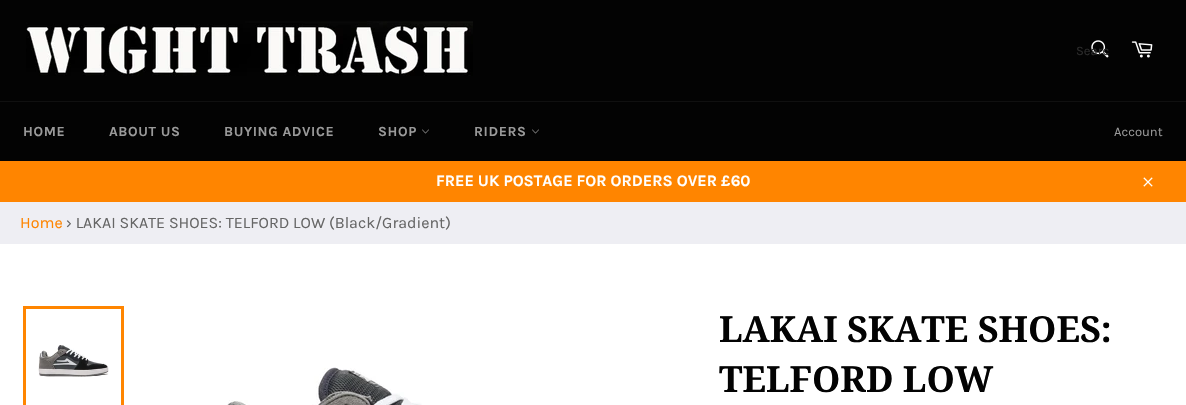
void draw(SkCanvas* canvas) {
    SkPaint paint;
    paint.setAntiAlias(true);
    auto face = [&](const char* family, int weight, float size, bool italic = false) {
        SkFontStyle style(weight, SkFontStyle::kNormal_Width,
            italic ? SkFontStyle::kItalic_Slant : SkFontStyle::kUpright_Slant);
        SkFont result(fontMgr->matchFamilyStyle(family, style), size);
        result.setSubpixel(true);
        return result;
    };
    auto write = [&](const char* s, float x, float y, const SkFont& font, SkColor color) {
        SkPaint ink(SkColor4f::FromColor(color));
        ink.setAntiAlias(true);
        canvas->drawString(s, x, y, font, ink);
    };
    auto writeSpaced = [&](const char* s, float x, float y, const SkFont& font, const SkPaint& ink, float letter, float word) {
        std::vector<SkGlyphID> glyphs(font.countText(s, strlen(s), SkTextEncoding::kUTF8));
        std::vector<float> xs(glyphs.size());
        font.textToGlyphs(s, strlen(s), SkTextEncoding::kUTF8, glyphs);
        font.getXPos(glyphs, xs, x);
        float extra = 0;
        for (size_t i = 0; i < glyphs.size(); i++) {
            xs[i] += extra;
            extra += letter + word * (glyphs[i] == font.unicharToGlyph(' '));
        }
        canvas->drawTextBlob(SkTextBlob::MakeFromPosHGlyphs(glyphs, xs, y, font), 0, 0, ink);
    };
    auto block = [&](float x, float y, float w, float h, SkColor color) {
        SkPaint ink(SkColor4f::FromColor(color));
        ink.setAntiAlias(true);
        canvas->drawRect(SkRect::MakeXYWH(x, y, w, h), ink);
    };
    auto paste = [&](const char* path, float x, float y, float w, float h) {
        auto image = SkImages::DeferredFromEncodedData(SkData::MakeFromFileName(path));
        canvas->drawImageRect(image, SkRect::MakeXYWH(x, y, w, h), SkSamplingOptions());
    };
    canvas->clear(SkColorSetRGB(238, 238, 243));
    block(0, 0, 1186, 101, SkColorSetRGB(3, 3, 3));
    paste("pic1.png", 26, 21, 447, 55);
    paste("pic2.png", 1091, 40, 18, 18);
    auto kFont1 = face("Karla", 400, 13);
    write("Searc", 1076, 55, kFont1, SkColorSetRGB(43, 43, 43));
    paste("pic3.png", 1131, 41, 22, 17);
    block(0, 102, 1186, 59, SkColorSetRGB(3, 3, 3));
    block(0, 101, 1186, 1, SkColorSetRGB(16, 16, 16));
    auto kFont2 = face("Karla", 700, 14);
    paint.setColor(SkColorSetRGB(154, 154, 154));
    writeSpaced("HOME", 23, 136, kFont2, paint, 0.6f, 0);
    writeSpaced("ABOUT US", 109, 136, kFont2, paint, 0.6f, 0);
    writeSpaced("BUYING ADVICE", 224, 136, kFont2, paint, 0.6f, 0);
    writeSpaced("SHOP", 378, 136, kFont2, paint, 0.6f, 0);
    paste("pic4.png", 422, 129, 7, 5);
    writeSpaced("RIDERS", 474, 136, kFont2, paint, 0.6f, 0);
    paste("pic4.png", 532, 129, 7, 5);
    write("Account", 1114, 136, kFont1, SkColorSetRGB(154, 154, 154));
    block(0, 161, 1186, 41, SkColorSetRGB(255, 133, 0));
    auto kFont3 = face("Karla", 700, 16);
    write("FREE UK POSTAGE FOR ORDERS OVER £60", 436, 186, kFont3, SK_ColorWHITE);
    paste("pic5.png", 1143, 177, 10, 10);
    auto kFont4 = face("Karla", 400, 16);
    write("Home", 20, 228, kFont4, SkColorSetRGB(255, 133, 0));
    write("› LAKAI SKATE SHOES: TELFORD LOW (Black/Gradient)", 66, 228, kFont4, SkColorSetRGB(102, 102, 102));
    block(0, 244, 1186, 161, SK_ColorWHITE);
    paste("pic6.png", 38, 345, 71, 32);
    paint.setStyle(SkPaint::kStroke_Style);
    paint.setStrokeWidth(3);
    paint.setColor(SkColorSetRGB(255, 133, 0));
    canvas->drawRect(SkRect::MakeXYWH(24.5f, 307.5f, 98, 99), paint);
    paste("pic7.png", 227, 367, 195, 38);
    auto kFont5 = face("Noto Serif", 700, 36);
    write("LAKAI SKATE SHOES:", 719, 342, kFont5, SkColorSetRGB(3, 3, 3));
    write("TELFORD LOW", 719, 392, kFont5, SkColorSetRGB(3, 3, 3));
}
